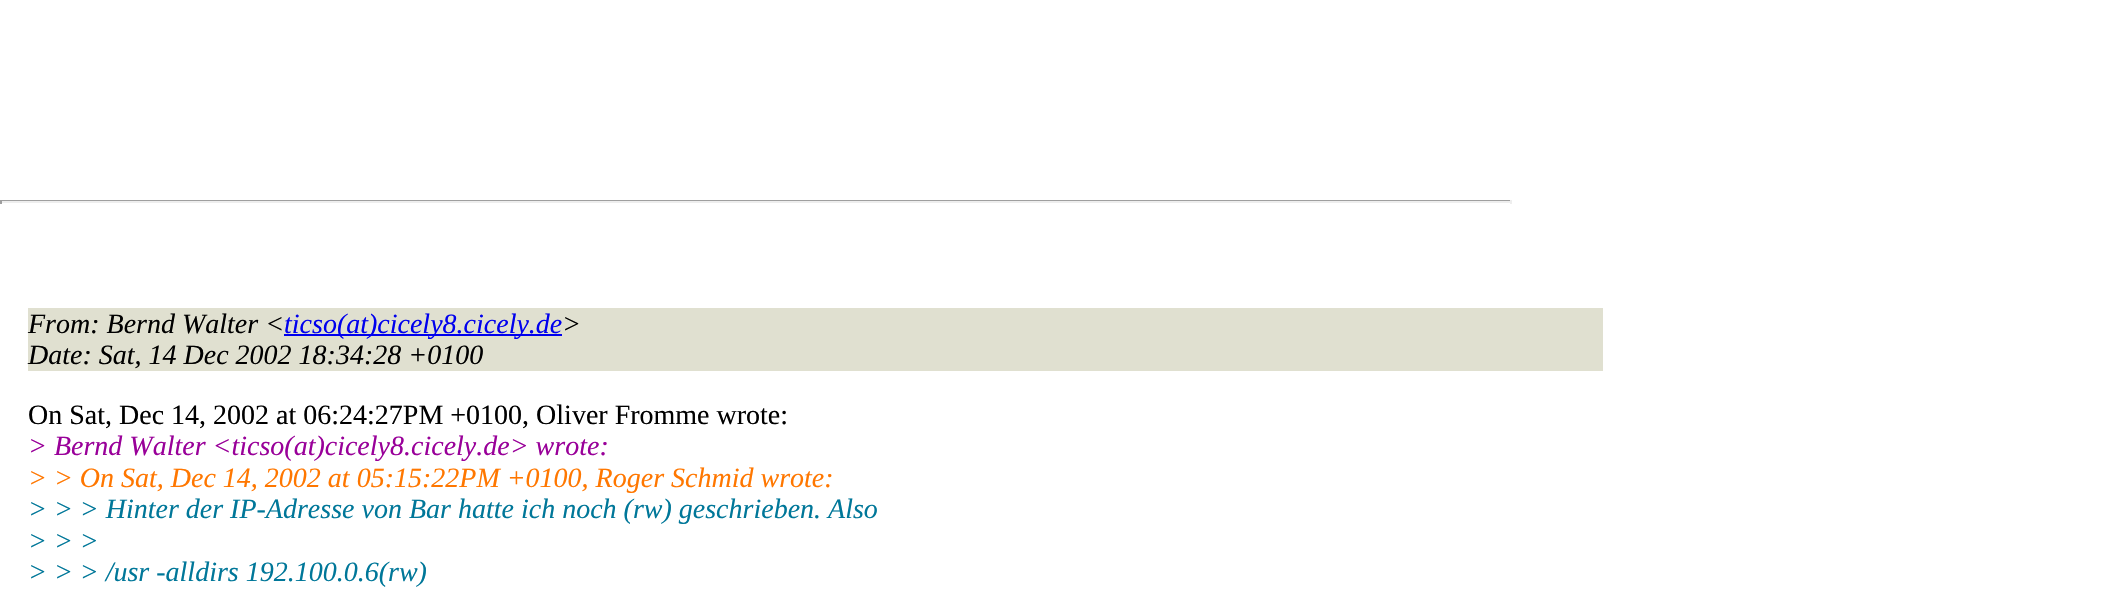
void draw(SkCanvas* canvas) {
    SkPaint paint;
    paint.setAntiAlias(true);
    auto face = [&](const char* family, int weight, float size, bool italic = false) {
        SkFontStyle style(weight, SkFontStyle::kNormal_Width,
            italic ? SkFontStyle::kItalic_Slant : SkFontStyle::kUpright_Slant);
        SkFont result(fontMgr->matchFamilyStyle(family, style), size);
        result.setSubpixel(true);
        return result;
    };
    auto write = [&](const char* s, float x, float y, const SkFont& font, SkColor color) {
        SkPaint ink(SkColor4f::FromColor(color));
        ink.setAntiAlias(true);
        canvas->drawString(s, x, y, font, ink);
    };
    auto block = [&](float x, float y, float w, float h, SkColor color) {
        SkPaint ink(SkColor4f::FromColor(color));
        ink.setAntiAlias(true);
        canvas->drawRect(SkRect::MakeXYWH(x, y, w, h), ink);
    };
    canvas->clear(SK_ColorWHITE);
    block(0, 200, 1512, 1, SkColorSetRGB(159, 159, 159));
    block(1510, 200, 2, 4, SkColorSetRGB(238, 238, 238));
    block(0, 201, 1512, 2, SkColorSetRGB(238, 238, 238));
    block(0, 200, 2, 4, SkColorSetRGB(159, 159, 159));
    block(28, 308, 1575, 63, SkColorSetRGB(224, 224, 208));
    auto kFont1 = face("Liberation Serif", 400, 28, true);
    write("From: Bernd Walter <", 28, 333, kFont1, SK_ColorBLACK);
    block(284, 334, 278, 2, SkColorSetRGB(0, 0, 238));
    write("ticso(at)cicely8.cicely.de", 284, 333, kFont1, SkColorSetRGB(0, 0, 238));
    write(">", 562, 333, kFont1, SK_ColorBLACK);
    write("Date: Sat, 14 Dec 2002 18:34:28 +0100", 28, 364, kFont1, SK_ColorBLACK);
    auto kFont2 = face("Liberation Serif", 400, 28);
    write("On Sat, Dec 14, 2002 at 06:24:27PM +0100, Oliver Fromme wrote:", 28, 424, kFont2, SK_ColorBLACK);
    write("> Bernd Walter <ticso(at)cicely8.cicely.de> wrote:", 28, 455, kFont1, SkColorSetRGB(153, 0, 153));
    write("> > On Sat, Dec 14, 2002 at 05:15:22PM +0100, Roger Schmid wrote:", 28, 487, kFont1, SkColorSetRGB(255, 119, 0));
    write("> > > Hinter der IP-Adresse von Bar hatte ich noch (rw) geschrieben. Also", 28, 518, kFont1, SkColorSetRGB(0, 119, 153));
    write("> > >", 28, 550, kFont1, SkColorSetRGB(0, 119, 153));
    write("> > > /usr -alldirs 192.100.0.6(rw)", 28, 581, kFont1, SkColorSetRGB(0, 119, 153));
}
